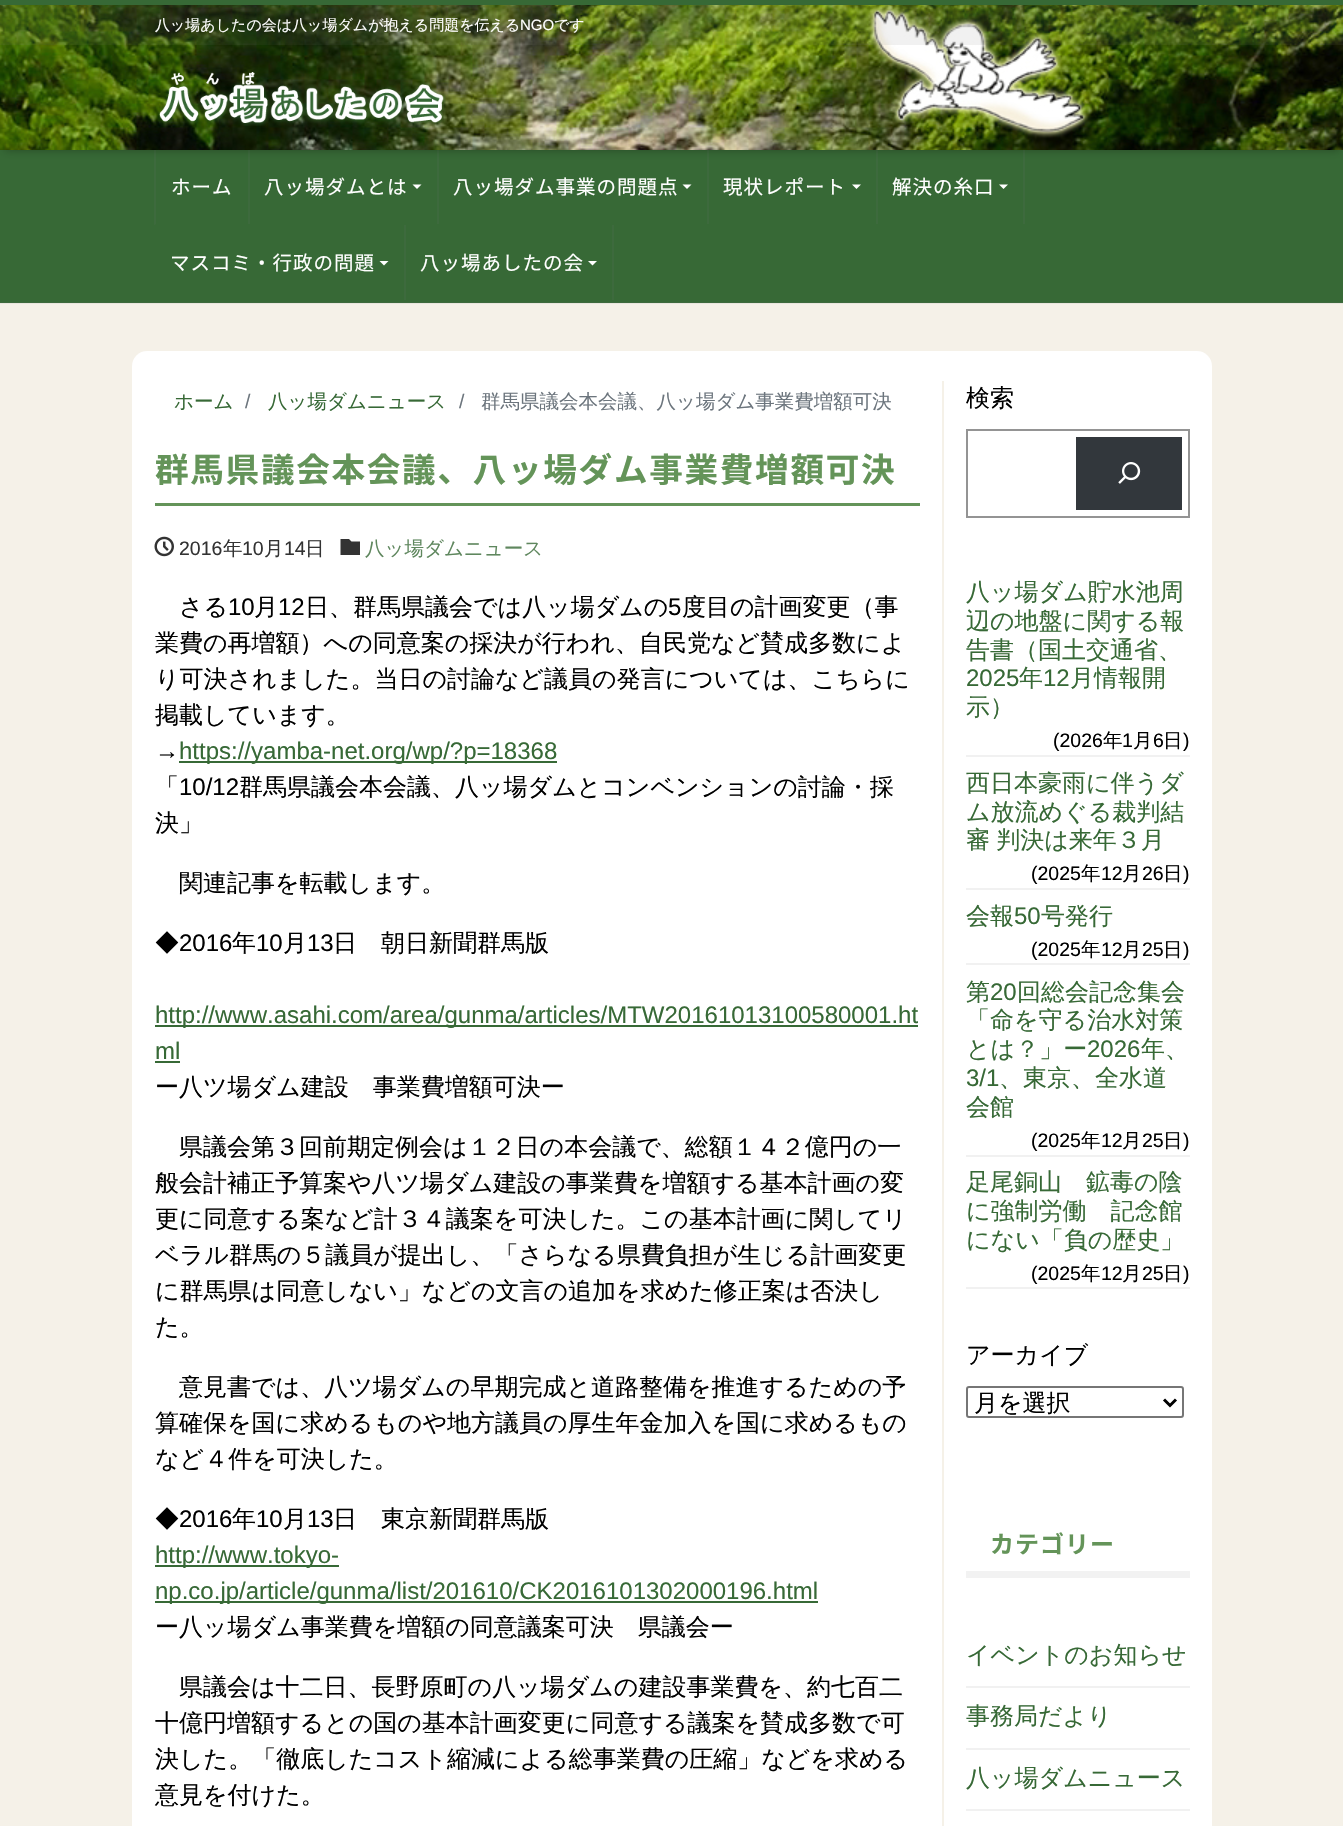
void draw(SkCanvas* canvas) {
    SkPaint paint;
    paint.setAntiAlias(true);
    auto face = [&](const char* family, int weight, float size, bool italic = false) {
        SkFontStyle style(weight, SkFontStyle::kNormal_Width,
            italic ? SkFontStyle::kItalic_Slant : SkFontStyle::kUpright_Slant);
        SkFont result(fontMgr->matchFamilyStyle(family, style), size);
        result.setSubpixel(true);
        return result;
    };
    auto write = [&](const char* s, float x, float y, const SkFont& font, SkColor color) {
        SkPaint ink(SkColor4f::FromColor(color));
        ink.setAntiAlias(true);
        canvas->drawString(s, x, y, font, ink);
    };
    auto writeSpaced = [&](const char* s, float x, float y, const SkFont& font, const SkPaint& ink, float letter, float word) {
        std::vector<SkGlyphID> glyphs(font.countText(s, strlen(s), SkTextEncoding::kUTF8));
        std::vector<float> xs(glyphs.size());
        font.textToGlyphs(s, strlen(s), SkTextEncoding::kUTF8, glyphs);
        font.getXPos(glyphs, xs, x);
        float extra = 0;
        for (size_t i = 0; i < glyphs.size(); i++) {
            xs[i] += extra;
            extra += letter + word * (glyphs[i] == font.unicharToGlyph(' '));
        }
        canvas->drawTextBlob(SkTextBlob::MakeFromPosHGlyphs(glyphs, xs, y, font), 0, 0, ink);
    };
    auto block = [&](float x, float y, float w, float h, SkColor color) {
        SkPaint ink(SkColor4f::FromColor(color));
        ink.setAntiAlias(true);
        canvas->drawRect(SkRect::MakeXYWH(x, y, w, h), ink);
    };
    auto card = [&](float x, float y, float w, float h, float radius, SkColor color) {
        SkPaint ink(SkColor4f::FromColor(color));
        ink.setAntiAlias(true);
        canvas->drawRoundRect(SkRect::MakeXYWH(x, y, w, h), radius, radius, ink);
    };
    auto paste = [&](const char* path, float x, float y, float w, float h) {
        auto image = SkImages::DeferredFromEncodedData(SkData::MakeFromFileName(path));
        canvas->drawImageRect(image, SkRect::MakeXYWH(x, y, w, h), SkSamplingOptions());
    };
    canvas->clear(SkColorSetRGB(245, 241, 232));
    block(0, 303, 1343, 1, SkColorSetRGB(232, 229, 221));
    block(0, 150, 1343, 152, SkColorSetRGB(55, 105, 54));
    paint.setColor(SkColorSetRGB(61, 106, 61));
    canvas->drawPath(SkPathBuilder().moveTo(154, 225).lineTo(154, 150).lineTo(156, 150).lineTo(156, 224).close().detach(), paint);
    block(248, 150, 2, 74, SkColorSetRGB(61, 106, 61));
    block(437, 150, 2, 74, SkColorSetRGB(61, 106, 61));
    block(707, 150, 2, 74, SkColorSetRGB(61, 106, 61));
    block(876, 150, 2, 74, SkColorSetRGB(61, 106, 61));
    block(1023, 150, 2, 74, SkColorSetRGB(61, 106, 61));
    paint.setColor(SkColorSetARGB(77, 0, 0, 0));
    paint.setMaskFilter(SkMaskFilter::MakeBlur(kNormal_SkBlurStyle, 4.5f));
    canvas->drawRect(SkRect::MakeXYWH(5, 9, 1335, 141), paint);
    paint.setMaskFilter(nullptr);
    paste("pic1.png", 0, 5, 1343, 145);
    block(0, 0, 1343, 5, SkColorSetRGB(55, 105, 54));
    block(0, 5, 1343, 40, SkColorSetARGB(26, 119, 119, 119));
    auto kFont1 = face("WenQuanYi Zen Hei", 500, 15);
    write("八ッ場あしたの会は八ッ場ダムが抱える問題を伝える", 155, 30, kFont1, SK_ColorWHITE);
    auto kFont2 = face("Liberation Sans", 400, 15);
    write("NGO", 520, 30, kFont2, SK_ColorWHITE);
    write("です", 554, 30, kFont1, SK_ColorWHITE);
    paste("pic2.png", 158, 72, 288, 54);
    block(0, 302, 1343, 1, SkColorSetRGB(61, 106, 61));
    auto kFont3 = face("Noto Sans JP", 400, 19.5f);
    paint.setColor(SK_ColorWHITE);
    writeSpaced("ホーム", 171, 194, kFont3, paint, 1, 0);
    writeSpaced("八ッ場ダムとは", 264, 194, kFont3, paint, 1, 0);
    canvas->drawPath(SkPathBuilder().moveTo(412.5f, 184.5f).lineTo(421.5f, 184.5f).lineTo(417, 189).close().detach(), paint);
    writeSpaced("八ッ場ダム事業の問題点", 453, 194, kFont3, paint, 1, 0);
    canvas->drawPath(SkPathBuilder().moveTo(682.5f, 184.5f).lineTo(691.5f, 184.5f).lineTo(687, 189).close().detach(), paint);
    writeSpaced("現状レポート", 723, 194, kFont3, paint, 1, 0);
    canvas->drawPath(SkPathBuilder().moveTo(852, 184.5f).lineTo(861, 184.5f).lineTo(856.5f, 189).close().detach(), paint);
    writeSpaced("解決の糸口", 892, 194, kFont3, paint, 1, 0);
    canvas->drawPath(SkPathBuilder().moveTo(999, 184.5f).lineTo(1008, 184.5f).lineTo(1003.5f, 189).close().detach(), paint);
    block(404, 225, 2, 75, SkColorSetRGB(61, 106, 61));
    writeSpaced("マスコミ・行政の問題", 170, 270, kFont3, paint, 1, 0);
    canvas->drawPath(SkPathBuilder().moveTo(379.5f, 261).lineTo(388.5f, 261).lineTo(384, 265.5f).close().detach(), paint);
    block(612, 225, 2, 75, SkColorSetRGB(61, 106, 61));
    writeSpaced("八ッ場あしたの会", 420, 270, kFont3, paint, 1, 0);
    canvas->drawPath(SkPathBuilder().moveTo(588, 261).lineTo(597, 261).lineTo(592.5f, 265.5f).close().detach(), paint);
    card(132, 351, 1080, 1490, 15, SK_ColorWHITE);
    auto kFont4 = face("WenQuanYi Zen Hei", 500, 19.5f);
    write("ホーム", 174, 408, kFont4, SkColorSetRGB(55, 105, 54));
    auto kFont5 = face("Liberation Sans", 400, 19.5f);
    write("/", 245, 408, kFont5, SkColorSetRGB(108, 117, 125));
    write("八ッ場ダムニュース", 268, 408, kFont4, SkColorSetRGB(55, 105, 54));
    write("/", 459, 408, kFont5, SkColorSetRGB(108, 117, 125));
    write("群馬県議会本会議、八ッ場ダム事業費増額可決", 481, 408, kFont4, SkColorSetRGB(108, 117, 125));
    block(155, 503, 765, 3, SkColorSetRGB(100, 148, 89));
    auto kFont6 = face("Noto Sans JP", 700, 33.6f);
    paint.setColor(SkColorSetRGB(100, 148, 89));
    writeSpaced("群馬県議会本会議、八ッ場ダム事業費増額可決", 155, 482, kFont6, paint, 1.7f, 0);
    paste("pic3.png", 154, 536, 20, 21);
    write("2016", 179, 555, kFont5, SkColorSetRGB(51, 51, 51));
    write("年", 223, 555, kFont4, SkColorSetRGB(51, 51, 51));
    write("10", 242, 555, kFont5, SkColorSetRGB(51, 51, 51));
    write("月", 264, 555, kFont4, SkColorSetRGB(51, 51, 51));
    write("14", 284, 555, kFont5, SkColorSetRGB(51, 51, 51));
    write("日", 305, 555, kFont4, SkColorSetRGB(51, 51, 51));
    write("八ッ場ダムニュース", 365, 555, kFont4, SkColorSetRGB(95, 135, 94));
    paint.setColor(SkColorSetRGB(51, 51, 51));
    canvas->drawPath(SkPathBuilder().moveTo(349, 539).lineTo(351.5f, 541.5f).lineTo(360, 541.5f).lineTo(360, 555).lineTo(340.5f, 555).lineTo(340.5f, 539).close().detach(), paint);
    auto kFont7 = face("WenQuanYi Zen Hei", 500, 24);
    write("さる", 179, 615, kFont7, SK_ColorBLACK);
    auto kFont8 = face("Liberation Sans", 400, 24);
    write("10", 228, 615, kFont8, SK_ColorBLACK);
    write("月", 254, 615, kFont7, SK_ColorBLACK);
    write("12", 278, 615, kFont8, SK_ColorBLACK);
    write("日、群馬県議会では八ッ場ダムの", 305, 615, kFont7, SK_ColorBLACK);
    write("5", 668, 615, kFont8, SK_ColorBLACK);
    write("度目の計画変更（事", 682, 615, kFont7, SK_ColorBLACK);
    write("業費の再増額）への同意案の採決が行われ、自民党など賛成多数によ", 155, 651, kFont7, SK_ColorBLACK);
    write("り可決されました。当日の討論など議員の発言については、こちらに", 155, 687, kFont7, SK_ColorBLACK);
    write("掲載しています。", 155, 723, kFont7, SK_ColorBLACK);
    write("→", 155, 759, kFont8, SK_ColorBLACK);
    block(179, 761, 378, 2, SkColorSetRGB(55, 105, 54));
    write("https://yamba-net.org/wp/?p=18368", 179, 759, kFont8, SkColorSetRGB(55, 105, 54));
    write("「", 155, 795, kFont7, SK_ColorBLACK);
    write("10/12", 179, 795, kFont8, SK_ColorBLACK);
    write("群馬県議会本会議、八ッ場ダムとコンベンションの討論・採", 239, 795, kFont7, SK_ColorBLACK);
    write("決」", 155, 831, kFont7, SK_ColorBLACK);
    write("関連記事を転載します。", 179, 891, kFont7, SK_ColorBLACK);
    write("◆", 155, 951, kFont7, SK_ColorBLACK);
    write("2016", 179, 951, kFont8, SK_ColorBLACK);
    write("年", 232, 951, kFont7, SK_ColorBLACK);
    write("10", 256, 951, kFont8, SK_ColorBLACK);
    write("月", 283, 951, kFont7, SK_ColorBLACK);
    write("13", 307, 951, kFont8, SK_ColorBLACK);
    write("日　朝日新聞群馬版", 333, 951, kFont7, SK_ColorBLACK);
    block(155, 1025, 763, 2, SkColorSetRGB(55, 105, 54));
    write("http://www.asahi.com/area/gunma/articles/MTW20161013100580001.ht", 155, 1023, kFont8, SkColorSetRGB(55, 105, 54));
    write("ml", 155, 1059, kFont8, SkColorSetRGB(55, 105, 54));
    block(155, 1061, 25, 2, SkColorSetRGB(55, 105, 54));
    write("ー八ツ場ダム建設　事業費増額可決ー", 155, 1095, kFont7, SK_ColorBLACK);
    write("県議会第３回前期定例会は１２日の本会議で、総額１４２億円の一", 179, 1155, kFont7, SK_ColorBLACK);
    write("般会計補正予算案や八ツ場ダム建設の事業費を増額する基本計画の変", 155, 1191, kFont7, SK_ColorBLACK);
    write("更に同意する案など計３４議案を可決した。この基本計画に関してリ", 155, 1227, kFont7, SK_ColorBLACK);
    write("ベラル群馬の５議員が提出し、「さらなる県費負担が生じる計画変更", 155, 1263, kFont7, SK_ColorBLACK);
    write("に群馬県は同意しない」などの文言の追加を求めた修正案は否決し", 155, 1299, kFont7, SK_ColorBLACK);
    write("た。", 155, 1335, kFont7, SK_ColorBLACK);
    write("意見書では、八ツ場ダムの早期完成と道路整備を推進するための予", 179, 1395, kFont7, SK_ColorBLACK);
    write("算確保を国に求めるものや地方議員の厚生年金加入を国に求めるもの", 155, 1431, kFont7, SK_ColorBLACK);
    write("など４件を可決した。", 155, 1467, kFont7, SK_ColorBLACK);
    write("◆", 155, 1527, kFont7, SK_ColorBLACK);
    write("2016", 179, 1527, kFont8, SK_ColorBLACK);
    write("年", 232, 1527, kFont7, SK_ColorBLACK);
    write("10", 256, 1527, kFont8, SK_ColorBLACK);
    write("月", 283, 1527, kFont7, SK_ColorBLACK);
    write("13", 307, 1527, kFont8, SK_ColorBLACK);
    write("日　東京新聞群馬版", 333, 1527, kFont7, SK_ColorBLACK);
    block(155, 1565, 184, 2, SkColorSetRGB(55, 105, 54));
    write("http://www.tokyo-", 155, 1563, kFont8, SkColorSetRGB(55, 105, 54));
    block(155, 1601, 663, 2, SkColorSetRGB(55, 105, 54));
    write("np.co.jp/article/gunma/list/201610/CK2016101302000196.html", 155, 1599, kFont8, SkColorSetRGB(55, 105, 54));
    write("ー八ッ場ダム事業費を増額の同意議案可決　県議会ー", 155, 1635, kFont7, SK_ColorBLACK);
    write("県議会は十二日、長野原町の八ッ場ダムの建設事業費を、約七百二", 179, 1695, kFont7, SK_ColorBLACK);
    write("十億円増額するとの国の基本計画変更に同意する議案を賛成多数で可", 155, 1731, kFont7, SK_ColorBLACK);
    write("決した。「徹底したコスト縮減による総事業費の圧縮」などを求める", 155, 1767, kFont7, SK_ColorBLACK);
    write("意見を付けた。", 155, 1803, kFont7, SK_ColorBLACK);
    block(942, 381, 2, 1445, SkColorSetRGB(245, 241, 232));
    write("検索", 966, 406, kFont7, SK_ColorBLACK);
    paint.setStyle(SkPaint::kStroke_Style);
    paint.setStrokeWidth(2);
    paint.setColor(SkColorSetRGB(148, 148, 148));
    canvas->drawRect(SkRect::MakeXYWH(967, 430, 222, 87), paint);
    block(1076, 437, 106, 73, SkColorSetRGB(50, 55, 60));
    paste("pic4.png", 1118, 462, 23, 22);
    block(966, 755, 224, 2, SkColorSetRGB(241, 241, 241));
    write("八ッ場ダム貯水池周", 966, 600, kFont7, SkColorSetRGB(55, 105, 54));
    write("辺の地盤に関する報", 966, 629, kFont7, SkColorSetRGB(55, 105, 54));
    write("告書（国土交通省、", 966, 658, kFont7, SkColorSetRGB(55, 105, 54));
    write("2025", 966, 686, kFont8, SkColorSetRGB(55, 105, 54));
    write("年", 1019, 686, kFont7, SkColorSetRGB(55, 105, 54));
    write("12", 1043, 686, kFont8, SkColorSetRGB(55, 105, 54));
    write("月情報開", 1070, 686, kFont7, SkColorSetRGB(55, 105, 54));
    write("示）", 966, 715, kFont7, SkColorSetRGB(55, 105, 54));
    write("(2026", 1053, 747, kFont5, SK_ColorBLACK);
    write("年", 1103, 747, kFont4, SK_ColorBLACK);
    write("1", 1122, 747, kFont5, SK_ColorBLACK);
    write("月", 1133, 747, kFont4, SK_ColorBLACK);
    write("6", 1153, 747, kFont5, SK_ColorBLACK);
    write("日", 1163, 747, kFont4, SK_ColorBLACK);
    write(")", 1183, 747, kFont5, SK_ColorBLACK);
    block(966, 888, 224, 2, SkColorSetRGB(241, 241, 241));
    write("西日本豪雨に伴うダ", 966, 791, kFont7, SkColorSetRGB(55, 105, 54));
    write("ム放流めぐる裁判結", 966, 820, kFont7, SkColorSetRGB(55, 105, 54));
    paint.setStyle(SkPaint::kFill_Style);
    paint.setColor(SkColorSetRGB(55, 105, 54));
    writeSpaced("審 判決は来年３月", 966, 848, kFont7, paint, 0, -1);
    write("(2025", 1031, 880, kFont5, SK_ColorBLACK);
    write("年", 1081, 880, kFont4, SK_ColorBLACK);
    write("12", 1101, 880, kFont5, SK_ColorBLACK);
    write("月", 1122, 880, kFont4, SK_ColorBLACK);
    write("26", 1142, 880, kFont5, SK_ColorBLACK);
    write("日", 1163, 880, kFont4, SK_ColorBLACK);
    write(")", 1183, 880, kFont5, SK_ColorBLACK);
    block(966, 963, 224, 2, SkColorSetRGB(241, 241, 241));
    write("会報", 966, 924, kFont7, SkColorSetRGB(55, 105, 54));
    write("50", 1014, 924, kFont8, SkColorSetRGB(55, 105, 54));
    write("号発行", 1041, 924, kFont7, SkColorSetRGB(55, 105, 54));
    write("(2025", 1031, 956, kFont5, SK_ColorBLACK);
    write("年", 1081, 956, kFont4, SK_ColorBLACK);
    write("12", 1101, 956, kFont5, SK_ColorBLACK);
    write("月", 1122, 956, kFont4, SK_ColorBLACK);
    write("25", 1142, 956, kFont5, SK_ColorBLACK);
    write("日", 1163, 956, kFont4, SK_ColorBLACK);
    write(")", 1183, 956, kFont5, SK_ColorBLACK);
    block(966, 1155, 224, 2, SkColorSetRGB(241, 241, 241));
    write("第", 966, 1000, kFont7, SkColorSetRGB(55, 105, 54));
    write("20", 990, 1000, kFont8, SkColorSetRGB(55, 105, 54));
    write("回総会記念集会", 1017, 1000, kFont7, SkColorSetRGB(55, 105, 54));
    write("「命を守る治水対策", 966, 1028, kFont7, SkColorSetRGB(55, 105, 54));
    write("とは？」ー", 966, 1057, kFont7, SkColorSetRGB(55, 105, 54));
    write("2026", 1087, 1057, kFont8, SkColorSetRGB(55, 105, 54));
    write("年、", 1141, 1057, kFont7, SkColorSetRGB(55, 105, 54));
    write("3/1", 966, 1086, kFont8, SkColorSetRGB(55, 105, 54));
    write("、東京、全水道", 999, 1086, kFont7, SkColorSetRGB(55, 105, 54));
    write("会館", 966, 1115, kFont7, SkColorSetRGB(55, 105, 54));
    write("(2025", 1031, 1147, kFont5, SK_ColorBLACK);
    write("年", 1081, 1147, kFont4, SK_ColorBLACK);
    write("12", 1101, 1147, kFont5, SK_ColorBLACK);
    write("月", 1122, 1147, kFont4, SK_ColorBLACK);
    write("25", 1142, 1147, kFont5, SK_ColorBLACK);
    write("日", 1163, 1147, kFont4, SK_ColorBLACK);
    write(")", 1183, 1147, kFont5, SK_ColorBLACK);
    block(966, 1287, 224, 2, SkColorSetRGB(241, 241, 241));
    write("足尾銅山　鉱毒の陰", 966, 1190, kFont7, SkColorSetRGB(55, 105, 54));
    write("に強制労働　記念館", 966, 1219, kFont7, SkColorSetRGB(55, 105, 54));
    write("にない「負の歴史」", 966, 1248, kFont7, SkColorSetRGB(55, 105, 54));
    write("(2025", 1031, 1280, kFont5, SK_ColorBLACK);
    write("年", 1081, 1280, kFont4, SK_ColorBLACK);
    write("12", 1101, 1280, kFont5, SK_ColorBLACK);
    write("月", 1122, 1280, kFont4, SK_ColorBLACK);
    write("25", 1142, 1280, kFont5, SK_ColorBLACK);
    write("日", 1163, 1280, kFont4, SK_ColorBLACK);
    write(")", 1183, 1280, kFont5, SK_ColorBLACK);
    write("アーカイブ", 966, 1363, kFont7, SK_ColorBLACK);
    paint.setStyle(SkPaint::kStroke_Style);
    paint.setColor(SkColorSetRGB(118, 118, 118));
    canvas->drawRoundRect(SkRect::MakeXYWH(967, 1387, 216, 30), 2, 2, paint);
    paint.setStrokeWidth(3);
    paint.setColor(SK_ColorBLACK);
    canvas->drawPath(SkPathBuilder().moveTo(1164, 1399.5f).lineTo(1170, 1405.5f).lineTo(1176, 1399.5f).detach(), paint);
    write("月を選択", 974, 1411, kFont7, SK_ColorBLACK);
    block(966, 1571, 224, 7, SkColorSetRGB(242, 242, 242));
    auto kFont9 = face("Noto Sans JP", 700, 24);
    paint.setStyle(SkPaint::kFill_Style);
    paint.setColor(SkColorSetRGB(100, 148, 89));
    writeSpaced("カテゴリー", 990, 1553, kFont9, paint, 1, 0);
    block(966, 1686, 224, 2, SkColorSetRGB(241, 241, 241));
    write("イベントのお知らせ", 966, 1663, kFont7, SkColorSetRGB(55, 105, 54));
    block(966, 1748, 224, 2, SkColorSetRGB(241, 241, 241));
    write("事務局だより", 966, 1724, kFont7, SkColorSetRGB(55, 105, 54));
    block(966, 1809, 224, 2, SkColorSetRGB(241, 241, 241));
    write("八ッ場ダムニュース", 966, 1786, kFont7, SkColorSetRGB(55, 105, 54));
}
